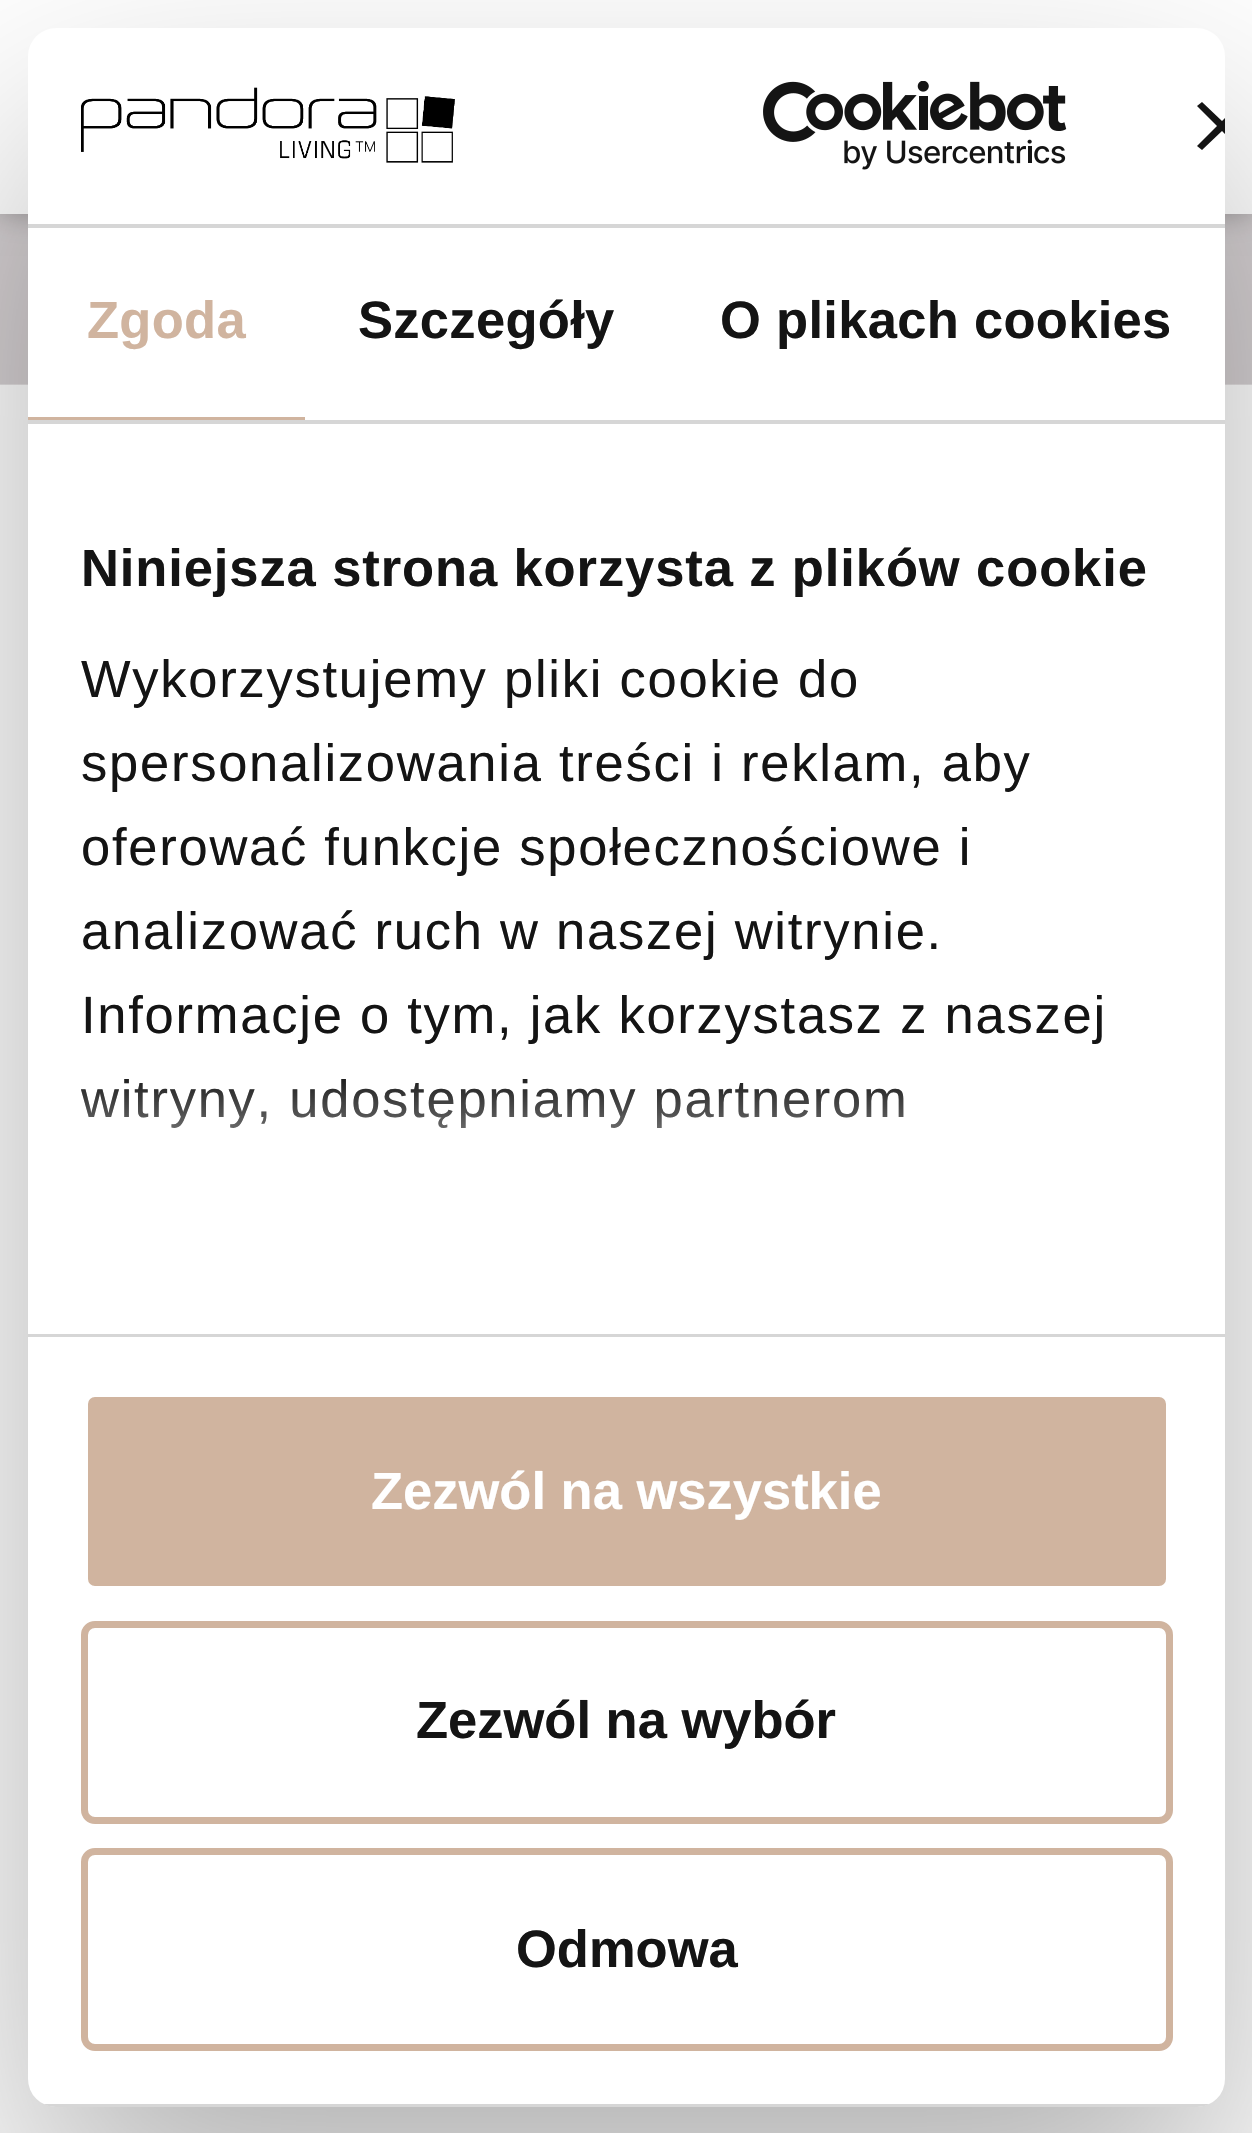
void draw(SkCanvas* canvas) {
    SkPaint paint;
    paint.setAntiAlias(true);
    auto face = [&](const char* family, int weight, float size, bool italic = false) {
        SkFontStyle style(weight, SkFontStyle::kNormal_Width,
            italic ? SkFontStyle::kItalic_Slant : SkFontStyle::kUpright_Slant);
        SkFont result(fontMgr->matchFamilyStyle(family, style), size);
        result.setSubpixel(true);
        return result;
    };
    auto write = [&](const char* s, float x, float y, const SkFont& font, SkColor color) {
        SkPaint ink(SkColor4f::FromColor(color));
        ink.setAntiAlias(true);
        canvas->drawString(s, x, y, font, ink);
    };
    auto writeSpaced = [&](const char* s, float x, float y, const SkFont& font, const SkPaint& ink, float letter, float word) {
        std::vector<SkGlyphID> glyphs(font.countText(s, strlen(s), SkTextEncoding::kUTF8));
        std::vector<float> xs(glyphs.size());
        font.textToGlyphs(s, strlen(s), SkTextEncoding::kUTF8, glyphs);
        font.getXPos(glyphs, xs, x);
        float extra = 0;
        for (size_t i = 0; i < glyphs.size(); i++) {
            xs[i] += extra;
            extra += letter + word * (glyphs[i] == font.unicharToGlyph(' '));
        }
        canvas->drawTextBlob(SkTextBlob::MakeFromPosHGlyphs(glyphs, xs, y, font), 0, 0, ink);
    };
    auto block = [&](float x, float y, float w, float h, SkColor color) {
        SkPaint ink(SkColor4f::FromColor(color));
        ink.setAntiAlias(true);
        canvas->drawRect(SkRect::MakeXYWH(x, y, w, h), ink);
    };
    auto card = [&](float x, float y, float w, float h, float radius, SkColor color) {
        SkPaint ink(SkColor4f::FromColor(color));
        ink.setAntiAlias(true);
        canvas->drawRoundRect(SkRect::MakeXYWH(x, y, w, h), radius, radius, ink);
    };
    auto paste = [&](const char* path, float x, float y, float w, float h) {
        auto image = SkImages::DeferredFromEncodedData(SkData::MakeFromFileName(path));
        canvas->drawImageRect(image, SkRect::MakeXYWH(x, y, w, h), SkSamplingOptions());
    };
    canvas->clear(SK_ColorWHITE);
    paste("pic1.png", 0, 214, 1252, 171);
    paint.setColor(SkColorSetARGB(77, 0, 0, 0));
    paint.setMaskFilter(SkMaskFilter::MakeBlur(kNormal_SkBlurStyle, 14));
    canvas->drawRect(SkRect::MakeXYWH(0, 0, 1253, 214), paint);
    paint.setMaskFilter(nullptr);
    block(0, 0, 1252, 214, SK_ColorWHITE);
    paint.setMaskFilter(SkMaskFilter::MakeBlur(kNormal_SkBlurStyle, 119));
    canvas->drawRoundRect(SkRect::MakeXYWH(28, 140, 1197, 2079), 28, 28, paint);
    paint.setMaskFilter(nullptr);
    card(28, 28, 1197, 2079, 28, SK_ColorWHITE);
    block(28, 224, 1197, 4, SkColorSetRGB(214, 214, 214));
    paste("pic2.png", 81, 87, 374, 76);
    paste("pic3.png", 763, 81, 304, 89);
    paint.setColor(SkColorSetRGB(20, 20, 20));
    canvas->drawPath(SkPathBuilder().moveTo(1225, 118).lineTo(1225, 134).lineTo(1222, 131).lineTo(1202, 150).lineTo(1197, 146).lineTo(1217, 126).lineTo(1197, 106).lineTo(1202, 102).lineTo(1222, 121).close().detach(), paint);
    block(28, 420, 1197, 4, SkColorSetRGB(214, 214, 214));
    block(28, 417, 277, 3, SkColorSetRGB(208, 180, 159));
    auto kFont1 = face("Liberation Sans", 700, 52.5f);
    paint.setColor(SkColorSetRGB(208, 180, 159));
    writeSpaced("Zgoda", 87, 338, kFont1, paint, 0.3f, 0);
    paint.setColor(SkColorSetRGB(20, 20, 20));
    writeSpaced("Szczegóły", 358, 338, kFont1, paint, 0.3f, 0);
    writeSpaced("O plikach cookies", 720, 338, kFont1, paint, 0.3f, 0);
    block(28, 1334, 1197, 3, SkColorSetRGB(214, 214, 214));
    writeSpaced("Niniejsza strona korzysta z plików cookie", 81, 586, kFont1, paint, 0.9f, 0);
    auto kFont2 = face("Liberation Sans", 400, 52.5f);
    writeSpaced("Wykorzystujemy pliki cookie do", 81, 697, kFont2, paint, 1.75f, 0);
    writeSpaced("spersonalizowania treści i reklam, aby", 81, 781, kFont2, paint, 1.75f, 0);
    writeSpaced("oferować funkcje społecznościowe i", 81, 865, kFont2, paint, 1.75f, 0);
    writeSpaced("analizować ruch w naszej witrynie.", 81, 949, kFont2, paint, 1.75f, 0);
    writeSpaced("Informacje o tym, jak korzystasz z naszej", 81, 1033, kFont2, paint, 1.75f, 0);
    writeSpaced("witryny, udostępniamy partnerom", 81, 1117, kFont2, paint, 1.75f, 0);
    {
        const SkColor colors[] = {SK_ColorWHITE, SkColorSetARGB(204, 255, 255, 255), SkColorSetARGB(0, 255, 255, 255)};
        const float stops[] = {0, 0.5f, 1};
        const SkPoint ends[] = {{604, 1334}, {604, 1071}};
        paint.setShader(SkGradientShader::MakeLinear(ends, colors, stops, 3, SkTileMode::kClamp));
        paint.setAlpha(255);
    }
    canvas->drawRect(SkRect::MakeXYWH(80, 1079, 823, 49), paint);
    canvas->save();
    canvas->clipPath(SkPathBuilder().moveTo(56, 28).lineTo(1197, 28).cubicTo(1212.5f, 28, 1225, 40.5f, 1225, 56).lineTo(1225, 2079).cubicTo(1225, 2094.5f, 1212.5f, 2107, 1197, 2107).lineTo(56, 2107).cubicTo(40.5f, 2107, 28, 2094.5f, 28, 2079).lineTo(28, 56).cubicTo(28, 40.5f, 40.5f, 28, 56, 28).close().detach(), true);
    block(43, 2104, 1167, 3, SkColorSetRGB(214, 214, 214));
    canvas->restore();
    paint.setShader(nullptr);
    paint.setColor(SkColorSetRGB(208, 180, 159));
    canvas->drawRoundRect(SkRect::MakeXYWH(84.5f, 1393.5f, 1085, 196), 10.5f, 10.5f, paint);
    paint.setStyle(SkPaint::kStroke_Style);
    paint.setStrokeWidth(7);
    paint.setColor(SK_ColorWHITE);
    canvas->drawRoundRect(SkRect::MakeXYWH(84.5f, 1393.5f, 1085, 196), 10.5f, 10.5f, paint);
    write("Zezwól na wszystkie", 371, 1509, kFont1, SK_ColorWHITE);
    paint.setColor(SkColorSetRGB(208, 180, 159));
    canvas->drawRoundRect(SkRect::MakeXYWH(84.5f, 1624.5f, 1085, 196), 10.5f, 10.5f, paint);
    write("Zezwól na wybór", 416, 1738, kFont1, SkColorSetRGB(20, 20, 20));
    canvas->drawRoundRect(SkRect::MakeXYWH(84.5f, 1851.5f, 1085, 196), 10.5f, 10.5f, paint);
    write("Odmowa", 516, 1967, kFont1, SkColorSetRGB(20, 20, 20));
}
